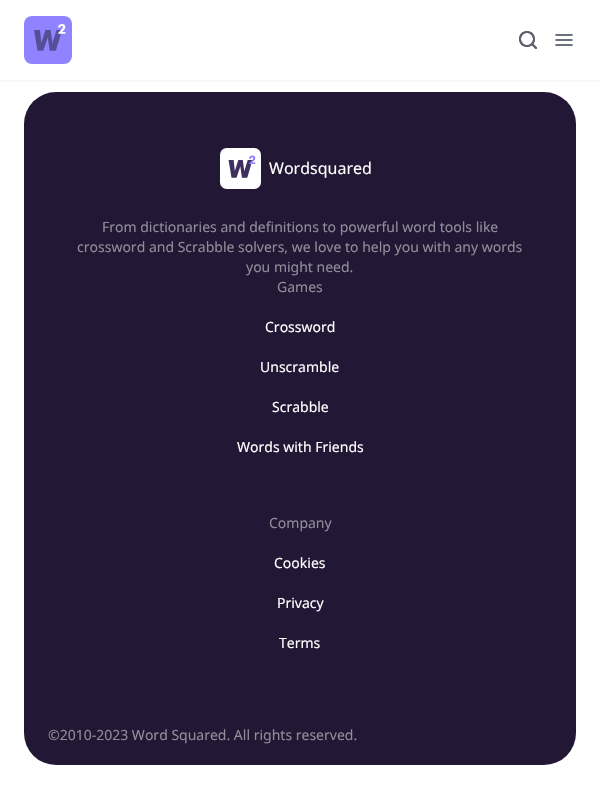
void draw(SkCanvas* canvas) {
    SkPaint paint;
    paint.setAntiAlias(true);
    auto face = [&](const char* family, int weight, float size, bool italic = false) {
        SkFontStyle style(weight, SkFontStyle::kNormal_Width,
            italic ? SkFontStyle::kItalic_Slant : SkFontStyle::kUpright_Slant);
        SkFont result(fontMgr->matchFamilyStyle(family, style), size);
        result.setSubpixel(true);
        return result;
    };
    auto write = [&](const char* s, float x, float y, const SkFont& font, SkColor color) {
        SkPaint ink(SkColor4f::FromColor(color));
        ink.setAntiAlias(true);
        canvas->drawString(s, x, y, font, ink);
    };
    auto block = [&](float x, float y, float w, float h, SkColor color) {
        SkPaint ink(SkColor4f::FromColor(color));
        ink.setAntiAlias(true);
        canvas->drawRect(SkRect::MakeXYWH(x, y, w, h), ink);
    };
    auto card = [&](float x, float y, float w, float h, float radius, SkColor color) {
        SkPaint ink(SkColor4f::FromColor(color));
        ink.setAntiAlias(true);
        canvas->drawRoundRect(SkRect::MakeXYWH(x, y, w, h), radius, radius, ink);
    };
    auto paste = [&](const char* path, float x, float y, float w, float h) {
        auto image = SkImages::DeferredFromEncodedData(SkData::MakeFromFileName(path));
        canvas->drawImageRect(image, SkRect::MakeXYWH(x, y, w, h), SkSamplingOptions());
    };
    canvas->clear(SK_ColorWHITE);
    paint.setColor(SkColorSetARGB(13, 0, 0, 0));
    paint.setMaskFilter(SkMaskFilter::MakeBlur(kNormal_SkBlurStyle, 1));
    canvas->drawRect(SkRect::MakeXYWH(0, 1, 600, 80), paint);
    paint.setMaskFilter(nullptr);
    block(0, 0, 600, 80, SK_ColorWHITE);
    paste("pic1.png", 24, 16, 48, 48);
    paste("pic2.png", 519, 31, 18, 18);
    paint.setStyle(SkPaint::kStroke_Style);
    paint.setStrokeWidth(1.5f);
    paint.setStrokeCap(SkPaint::kRound_Cap);
    paint.setStrokeJoin(SkPaint::kRound_Join);
    paint.setColor(SkColorSetRGB(55, 65, 81));
    canvas->drawPath(SkPathBuilder().moveTo(556, 35).lineTo(572, 35).moveTo(556, 40).lineTo(572, 40).moveTo(556, 45).lineTo(572, 45).detach(), paint);
    card(24, 92, 552, 673, 32, SkColorSetRGB(34, 24, 53));
    paste("pic3.png", 220, 148, 41, 41);
    auto kFont1 = face("Noto Sans", 400, 16);
    write("Wordsquared", 269, 174, kFont1, SK_ColorWHITE);
    auto kFont2 = face("Noto Sans", 400, 14);
    write("From dictionaries and definitions to powerful word tools like", 102, 232, kFont2, SkColorSetRGB(145, 140, 154));
    write("crossword and Scrabble solvers, we love to help you with any words", 77, 252, kFont2, SkColorSetRGB(145, 140, 154));
    write("you might need.", 246, 272, kFont2, SkColorSetRGB(145, 140, 154));
    write("©2010-2023 Word Squared. All rights reserved.", 48, 740, kFont2, SkColorSetRGB(145, 140, 154));
    write("Games", 277, 292, kFont2, SkColorSetRGB(145, 140, 154));
    write("Crossword", 265, 332, kFont2, SK_ColorWHITE);
    write("Unscramble", 260, 372, kFont2, SK_ColorWHITE);
    write("Scrabble", 272, 412, kFont2, SK_ColorWHITE);
    write("Words with Friends", 237, 452, kFont2, SK_ColorWHITE);
    write("Company", 269, 528, kFont2, SkColorSetRGB(145, 140, 154));
    write("Cookies", 274, 568, kFont2, SK_ColorWHITE);
    write("Privacy", 277, 608, kFont2, SK_ColorWHITE);
    write("Terms", 279, 648, kFont2, SK_ColorWHITE);
}
